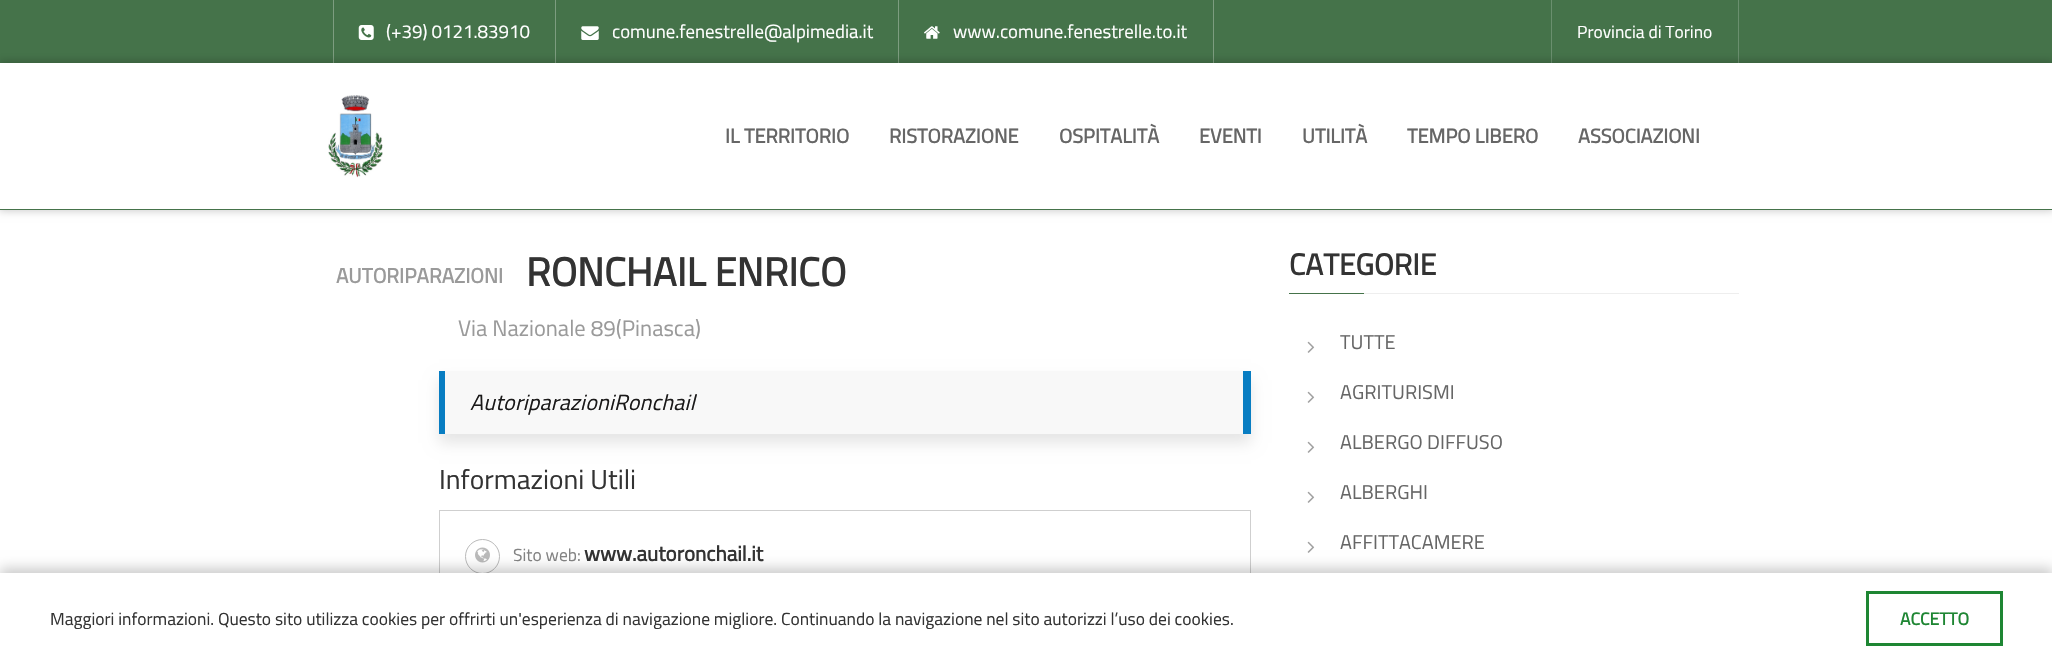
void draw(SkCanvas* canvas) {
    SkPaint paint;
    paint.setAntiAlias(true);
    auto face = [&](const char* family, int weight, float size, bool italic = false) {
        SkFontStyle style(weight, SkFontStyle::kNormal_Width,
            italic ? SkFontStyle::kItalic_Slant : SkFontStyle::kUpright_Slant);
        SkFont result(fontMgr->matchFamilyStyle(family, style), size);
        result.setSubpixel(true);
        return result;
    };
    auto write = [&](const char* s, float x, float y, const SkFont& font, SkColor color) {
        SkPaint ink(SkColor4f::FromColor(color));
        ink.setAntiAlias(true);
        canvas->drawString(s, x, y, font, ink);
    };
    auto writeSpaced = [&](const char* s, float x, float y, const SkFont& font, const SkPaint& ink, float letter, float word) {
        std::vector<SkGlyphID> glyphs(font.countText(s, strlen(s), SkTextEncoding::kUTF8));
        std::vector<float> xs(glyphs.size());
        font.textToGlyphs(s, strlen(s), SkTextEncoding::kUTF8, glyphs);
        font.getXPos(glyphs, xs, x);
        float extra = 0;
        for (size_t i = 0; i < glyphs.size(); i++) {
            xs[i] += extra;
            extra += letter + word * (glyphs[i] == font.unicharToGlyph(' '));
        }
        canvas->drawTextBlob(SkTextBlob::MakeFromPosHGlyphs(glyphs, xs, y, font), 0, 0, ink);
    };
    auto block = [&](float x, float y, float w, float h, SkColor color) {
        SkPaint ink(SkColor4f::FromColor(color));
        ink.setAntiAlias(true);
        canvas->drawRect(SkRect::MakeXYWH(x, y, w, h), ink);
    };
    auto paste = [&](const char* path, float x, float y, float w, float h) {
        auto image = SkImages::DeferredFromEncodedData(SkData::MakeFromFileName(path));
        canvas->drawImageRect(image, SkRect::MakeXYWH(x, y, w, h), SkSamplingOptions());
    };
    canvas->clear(SK_ColorWHITE);
    block(0, 0, 2052, 63, SkColorSetRGB(69, 115, 74));
    block(555, 0, 1, 63, SkColorSetRGB(125, 157, 128));
    block(333, 0, 1, 63, SkColorSetRGB(125, 157, 128));
    paste("pic1.png", 358, 25, 16, 15);
    auto kFont1 = face("Titillium Web", 400, 18.75f);
    write("(+39) 0121.83910", 386, 38, kFont1, SK_ColorWHITE);
    block(898, 0, 1, 63, SkColorSetRGB(125, 157, 128));
    paste("pic2.png", 581, 26, 18, 14);
    write("comune.fenestrelle@alpimedia.it", 612, 38, kFont1, SK_ColorWHITE);
    block(1213, 0, 1, 63, SkColorSetRGB(125, 157, 128));
    paste("pic3.png", 924, 26, 16, 13);
    write("www.comune.fenestrelle.to.it", 953, 38, kFont1, SK_ColorWHITE);
    block(1551, 0, 1, 63, SkColorSetRGB(106, 143, 110));
    block(1738, 0, 1, 63, SkColorSetRGB(106, 143, 110));
    auto kFont2 = face("Titillium Web", 400, 17.5f);
    write("Provincia di Torino", 1577, 38, kFont2, SK_ColorWHITE);
    canvas->save();
    canvas->clipPath(SkPathBuilder(SkPathFillType::kEvenOdd).moveTo(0, 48).lineTo(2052, 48).lineTo(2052, 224).lineTo(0, 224).close().moveTo(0, 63).lineTo(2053, 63).lineTo(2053, 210).lineTo(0, 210).close().detach(), true);
    paint.setColor(SkColorSetARGB(51, 0, 0, 0));
    paint.setMaskFilter(SkMaskFilter::MakeBlur(kNormal_SkBlurStyle, 4));
    canvas->drawRect(SkRect::MakeXYWH(-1, 61, 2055, 150), paint);
    paint.setMaskFilter(nullptr);
    canvas->restore();
    block(0, 209, 2052, 1, SkColorSetRGB(69, 115, 74));
    paste("pic4.png", 328, 95, 55, 83);
    auto kFont3 = face("Titillium Web", 700, 20);
    write("IL TERRITORIO", 725, 143, kFont3, SkColorSetRGB(102, 102, 102));
    write("RISTORAZIONE", 889, 143, kFont3, SkColorSetRGB(102, 102, 102));
    write("OSPITALITÀ", 1059, 143, kFont3, SkColorSetRGB(102, 102, 102));
    write("EVENTI", 1199, 143, kFont3, SkColorSetRGB(102, 102, 102));
    write("UTILITÀ", 1302, 143, kFont3, SkColorSetRGB(102, 102, 102));
    write("TEMPO LIBERO", 1407, 143, kFont3, SkColorSetRGB(102, 102, 102));
    write("ASSOCIAZIONI", 1578, 143, kFont3, SkColorSetRGB(102, 102, 102));
    auto kFont4 = face("Titillium Web", 700, 20.75f);
    write("AUTORIPARAZIONI", 336, 283, kFont4, SkColorSetRGB(154, 154, 154));
    auto kFont5 = face("Titillium Web", 700, 40);
    write("RONCHAIL ENRICO", 526, 286, kFont5, SkColorSetRGB(51, 51, 51));
    auto kFont6 = face("Titillium Web", 400, 22.5f);
    write("Via Nazionale 89(Pinasca)", 458, 336, kFont6, SkColorSetRGB(154, 154, 154));
    paint.setColor(SkColorSetARGB(26, 0, 0, 0));
    paint.setMaskFilter(SkMaskFilter::MakeBlur(kNormal_SkBlurStyle, 7));
    canvas->drawRect(SkRect::MakeXYWH(439, 380, 812, 63), paint);
    paint.setMaskFilter(nullptr);
    block(445, 371, 798, 63, SkColorSetRGB(248, 248, 248));
    block(1243, 371, 8, 63, SkColorSetRGB(8, 125, 194));
    block(439, 371, 6, 63, SkColorSetRGB(8, 125, 194));
    auto kFont7 = face("Titillium Web", 400, 21.9f, true);
    paint.setColor(SkColorSetRGB(26, 25, 25));
    writeSpaced("AutoriparazioniRonchail", 470, 410, kFont7, paint, 0.25f, 0);
    auto kFont8 = face("Titillium Web", 400, 27.5f);
    write("Informazioni Utili", 439, 489, kFont8, SkColorSetRGB(51, 51, 51));
    paint.setStyle(SkPaint::kStroke_Style);
    paint.setStrokeWidth(1);
    paint.setColor(SkColorSetRGB(207, 207, 207));
    canvas->drawRect(SkRect::MakeXYWH(439.5f, 510.5f, 811, 147), paint);
    paint.setColor(SkColorSetRGB(186, 186, 186));
    canvas->drawCircle(482.5f, 556.5f, 17, paint);
    paste("pic5.png", 475, 547, 15, 16);
    write("Sito web:", 513, 561, kFont2, SkColorSetRGB(131, 131, 131));
    auto kFont9 = face("Titillium Web", 700, 21);
    write("www.autoronchail.it", 584, 561, kFont9, SkColorSetRGB(51, 51, 51));
    block(1364, 293, 375, 1, SkColorSetRGB(238, 238, 238));
    auto kFont10 = face("Titillium Web", 700, 30);
    write("CATEGORIE", 1289, 275, kFont10, SkColorSetRGB(51, 51, 51));
    block(1289, 293, 75, 1, SkColorSetRGB(69, 115, 74));
    paste("pic6.png", 1307, 341, 8, 12);
    auto kFont11 = face("Titillium Web", 400, 20);
    write("TUTTE", 1340, 349, kFont11, SkColorSetRGB(102, 102, 102));
    paste("pic6.png", 1307, 391, 8, 12);
    write("AGRITURISMI", 1340, 399, kFont11, SkColorSetRGB(102, 102, 102));
    paste("pic6.png", 1307, 441, 8, 12);
    write("ALBERGO DIFFUSO", 1340, 449, kFont11, SkColorSetRGB(102, 102, 102));
    paste("pic6.png", 1307, 491, 8, 12);
    write("ALBERGHI", 1340, 499, kFont11, SkColorSetRGB(102, 102, 102));
    paste("pic6.png", 1307, 541, 8, 12);
    write("AFFITTACAMERE", 1340, 549, kFont11, SkColorSetRGB(102, 102, 102));
    paint.setStyle(SkPaint::kFill_Style);
    paint.setColor(SkColorSetARGB(51, 0, 0, 0));
    paint.setMaskFilter(SkMaskFilter::MakeBlur(kNormal_SkBlurStyle, 6));
    canvas->drawRect(SkRect::MakeXYWH(0, 568, 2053, 92), paint);
    paint.setMaskFilter(nullptr);
    block(0, 573, 2052, 91, SK_ColorWHITE);
    write("Maggiori informazioni. Questo sito utilizza cookies per offrirti un'esperienza di navigazione migliore. Continuando la navigazione nel sito autorizzi l’uso dei cookies.", 50, 625, kFont2, SkColorSetRGB(51, 51, 51));
    paint.setStyle(SkPaint::kStroke_Style);
    paint.setStrokeWidth(3);
    paint.setColor(SkColorSetRGB(30, 134, 51));
    canvas->drawRect(SkRect::MakeXYWH(1867.5f, 592.5f, 134, 52), paint);
    auto kFont12 = face("Titillium Web", 700, 17.5f);
    write("ACCETTO", 1900, 625, kFont12, SkColorSetRGB(30, 134, 51));
}
